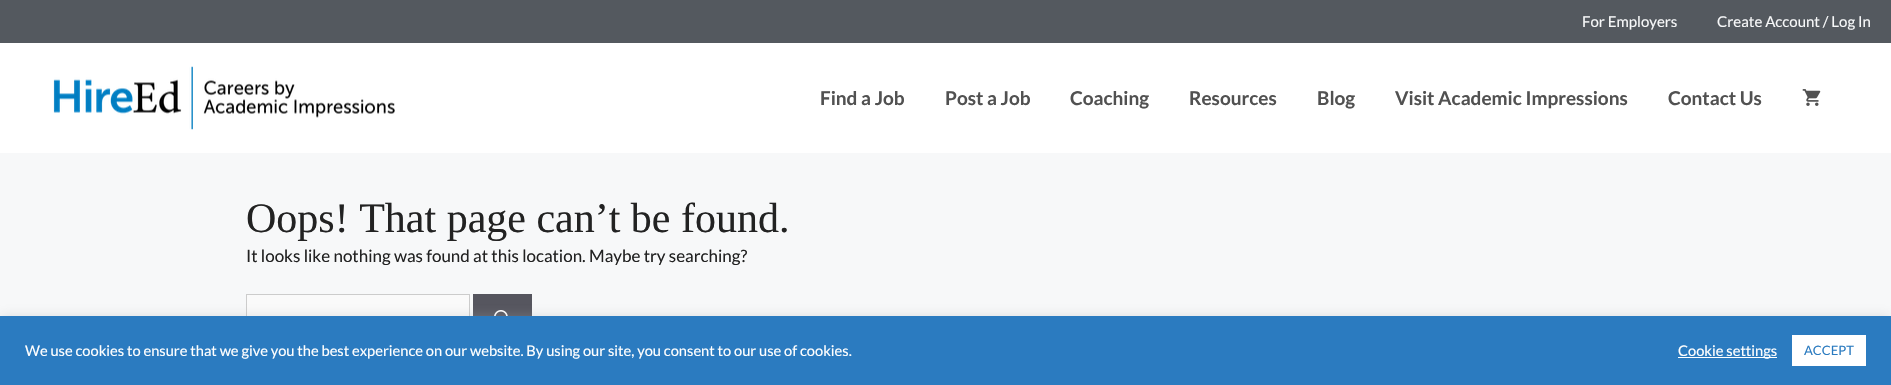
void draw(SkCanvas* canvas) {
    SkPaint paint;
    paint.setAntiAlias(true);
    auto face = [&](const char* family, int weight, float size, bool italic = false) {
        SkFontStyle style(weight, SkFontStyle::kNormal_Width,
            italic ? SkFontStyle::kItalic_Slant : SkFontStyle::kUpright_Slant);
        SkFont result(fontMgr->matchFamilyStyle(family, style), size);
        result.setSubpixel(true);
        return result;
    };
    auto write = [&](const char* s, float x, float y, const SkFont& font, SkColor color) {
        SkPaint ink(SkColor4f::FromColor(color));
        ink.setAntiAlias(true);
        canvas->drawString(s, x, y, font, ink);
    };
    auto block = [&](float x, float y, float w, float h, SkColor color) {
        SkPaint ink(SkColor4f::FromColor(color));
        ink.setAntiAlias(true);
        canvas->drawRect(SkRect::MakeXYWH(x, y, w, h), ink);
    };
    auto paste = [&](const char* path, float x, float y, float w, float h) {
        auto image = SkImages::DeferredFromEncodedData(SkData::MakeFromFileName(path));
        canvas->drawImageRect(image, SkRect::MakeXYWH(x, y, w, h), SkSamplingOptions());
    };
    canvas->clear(SkColorSetRGB(247, 248, 249));
    block(0, 0, 1891, 43, SkColorSetRGB(84, 89, 95));
    auto kFont1 = face("Lato", 400, 15);
    write("For Employers", 1582, 27, kFont1, SkColorSetRGB(247, 248, 249));
    write("Create Account / Log In", 1717, 27, kFont1, SkColorSetRGB(247, 248, 249));
    block(0, 43, 1891, 110, SK_ColorWHITE);
    paste("pic1.png", 53, 66, 342, 64);
    auto kFont2 = face("Lato", 700, 19);
    write("Find a Job", 820, 105, kFont2, SkColorSetRGB(81, 81, 81));
    write("Post a Job", 945, 105, kFont2, SkColorSetRGB(81, 81, 81));
    write("Coaching", 1070, 105, kFont2, SkColorSetRGB(81, 81, 81));
    write("Resources", 1189, 105, kFont2, SkColorSetRGB(81, 81, 81));
    write("Blog", 1317, 105, kFont2, SkColorSetRGB(81, 81, 81));
    write("Visit Academic Impressions", 1395, 105, kFont2, SkColorSetRGB(81, 81, 81));
    write("Contact Us", 1668, 105, kFont2, SkColorSetRGB(81, 81, 81));
    paste("pic2.png", 1802, 89, 19, 17);
    auto kFont3 = face("Liberation Serif", 400, 42);
    write("Oops! That page can’t be found.", 246, 232, kFont3, SkColorSetRGB(34, 34, 34));
    auto kFont4 = face("Lato", 400, 17);
    write("It looks like nothing was found at this location. Maybe try searching?", 246, 262, kFont4, SkColorSetRGB(34, 34, 34));
    block(247, 295, 222, 21, SkColorSetRGB(250, 250, 250));
    paint.setStyle(SkPaint::kStroke_Style);
    paint.setStrokeWidth(1);
    paint.setColor(SkColorSetRGB(204, 204, 204));
    canvas->drawRect(SkRect::MakeXYWH(246.5f, 294.5f, 223, 47), paint);
    block(473, 294, 59, 22, SkColorSetRGB(85, 85, 94));
    paste("pic3.png", 494, 310, 14, 6);
    paint.setStyle(SkPaint::kFill_Style);
    paint.setColor(SkColorSetARGB(77, 172, 171, 171));
    paint.setMaskFilter(SkMaskFilter::MakeBlur(kNormal_SkBlurStyle, 5));
    canvas->drawRect(SkRect::MakeXYWH(0, 315, 1891, 69), paint);
    paint.setMaskFilter(nullptr);
    block(0, 316, 1891, 69, SkColorSetRGB(43, 123, 192));
    auto kFont5 = face("Lato", 400, 14.67f);
    write("We use cookies to ensure that we give you the best experience on our website. By using our site, you consent to our use of cookies.", 25, 356, kFont5, SK_ColorWHITE);
    block(1678, 357, 99, 1, SK_ColorWHITE);
    write("Cookie settings", 1678, 356, kFont5, SK_ColorWHITE);
    block(1792, 335, 74, 31, SK_ColorWHITE);
    auto kFont6 = face("Lato", 400, 13);
    write("ACCEPT", 1804, 355, kFont6, SkColorSetRGB(43, 123, 192));
}
